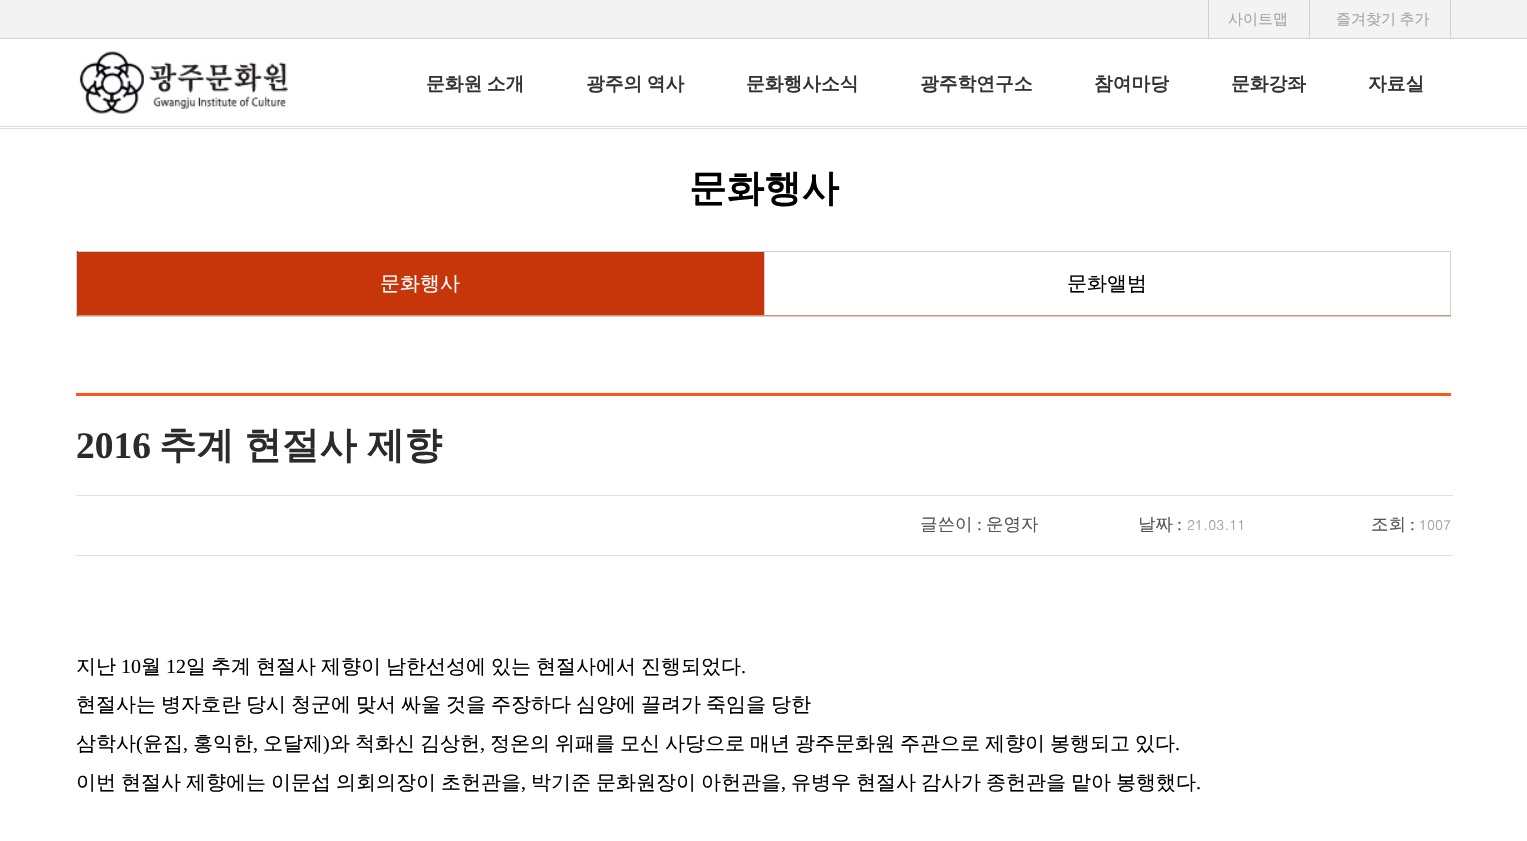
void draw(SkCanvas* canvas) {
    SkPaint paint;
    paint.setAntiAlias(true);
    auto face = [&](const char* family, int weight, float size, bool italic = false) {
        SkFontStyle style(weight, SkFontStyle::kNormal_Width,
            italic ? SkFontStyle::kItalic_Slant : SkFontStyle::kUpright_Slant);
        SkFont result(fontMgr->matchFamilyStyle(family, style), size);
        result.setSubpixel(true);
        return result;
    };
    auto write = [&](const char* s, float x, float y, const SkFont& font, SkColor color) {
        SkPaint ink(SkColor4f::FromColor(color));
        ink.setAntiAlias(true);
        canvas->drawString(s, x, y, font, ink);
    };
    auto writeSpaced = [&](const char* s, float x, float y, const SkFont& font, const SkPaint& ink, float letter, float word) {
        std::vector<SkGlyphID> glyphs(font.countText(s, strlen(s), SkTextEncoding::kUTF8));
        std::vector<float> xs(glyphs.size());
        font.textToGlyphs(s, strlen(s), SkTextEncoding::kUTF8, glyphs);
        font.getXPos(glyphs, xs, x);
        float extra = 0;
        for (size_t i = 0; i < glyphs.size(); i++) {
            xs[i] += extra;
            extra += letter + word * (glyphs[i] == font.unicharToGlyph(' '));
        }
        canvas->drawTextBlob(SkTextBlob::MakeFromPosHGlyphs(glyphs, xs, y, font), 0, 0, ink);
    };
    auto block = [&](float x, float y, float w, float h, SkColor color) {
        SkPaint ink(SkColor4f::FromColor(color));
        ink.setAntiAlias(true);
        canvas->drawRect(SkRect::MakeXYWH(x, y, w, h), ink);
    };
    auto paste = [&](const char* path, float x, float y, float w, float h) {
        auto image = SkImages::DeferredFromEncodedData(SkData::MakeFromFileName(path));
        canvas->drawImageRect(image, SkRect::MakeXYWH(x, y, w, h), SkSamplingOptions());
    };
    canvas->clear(SK_ColorWHITE);
    block(0, 0, 1527, 38, SkColorSetRGB(243, 243, 243));
    block(0, 38, 1527, 1, SkColorSetRGB(208, 208, 208));
    block(1208, 0, 1, 38, SkColorSetRGB(208, 208, 208));
    block(1309, 0, 1, 38, SkColorSetRGB(208, 208, 208));
    auto kFont1 = face("WenQuanYi Zen Hei", 500, 15);
    write("사이트맵", 1228, 24, kFont1, SkColorSetRGB(166, 166, 166));
    block(1450, 0, 1, 38, SkColorSetRGB(208, 208, 208));
    paint.setColor(SkColorSetRGB(166, 166, 166));
    writeSpaced("즐겨찾기 추가", 1336, 24, kFont1, paint, 0, -1);
    paste("pic1.png", 79, 51, 209, 63);
    auto kFont2 = face("WenQuanYi Zen Hei", 700, 18.75f);
    paint.setColor(SkColorSetRGB(51, 51, 51));
    writeSpaced("문화원 소개", 426, 90, kFont2, paint, 0, -1);
    writeSpaced("광주의 역사", 586, 90, kFont2, paint, 0, -1);
    write("문화행사소식", 746, 90, kFont2, SkColorSetRGB(51, 51, 51));
    write("광주학연구소", 920, 90, kFont2, SkColorSetRGB(51, 51, 51));
    write("참여마당", 1094, 90, kFont2, SkColorSetRGB(51, 51, 51));
    write("문화강좌", 1231, 90, kFont2, SkColorSetRGB(51, 51, 51));
    write("자료실", 1368, 90, kFont2, SkColorSetRGB(51, 51, 51));
    block(0, 126, 1527, 1, SkColorSetRGB(221, 221, 221));
    block(0, 128, 1527, 1, SkColorSetRGB(221, 221, 221));
    block(76, 316, 1375, 1, SkColorSetRGB(208, 208, 208));
    auto kFont3 = face("WenQuanYi Zen Hei", 700, 37.5f);
    write("문화행사", 689, 201, kFont3, SK_ColorBLACK);
    block(77, 251, 687, 65, SkColorSetRGB(199, 53, 11));
    block(76, 251, 1, 65, SkColorSetRGB(208, 208, 208));
    block(78, 251, 1373, 1, SkColorSetRGB(208, 208, 208));
    block(764, 251, 1, 65, SkColorSetRGB(208, 208, 208));
    block(78, 315, 687, 1, SkColorSetRGB(210, 149, 118));
    auto kFont4 = face("WenQuanYi Zen Hei", 500, 20);
    write("문화행사", 380, 290, kFont4, SK_ColorWHITE);
    block(1450, 251, 1, 65, SkColorSetRGB(208, 208, 208));
    block(765, 315, 686, 1, SkColorSetRGB(210, 149, 118));
    write("문화앨범", 1067, 290, kFont4, SK_ColorBLACK);
    block(76, 393, 1375, 3, SkColorSetRGB(255, 87, 23));
    block(76, 495, 1377, 1, SkColorSetRGB(224, 224, 224));
    auto kFont5 = face("Liberation Serif", 700, 37.5f);
    write("2016", 76, 458, kFont5, SkColorSetRGB(43, 43, 43));
    paint.setColor(SkColorSetRGB(43, 43, 43));
    writeSpaced("추계 현절사 제향", 159, 458, kFont3, paint, 0, -1);
    auto kFont6 = face("WenQuanYi Zen Hei", 500, 17.5f);
    write("글쓴이", 920, 530, kFont6, SkColorSetRGB(85, 85, 85));
    auto kFont7 = face("Liberation Serif", 400, 17.5f);
    write(":", 977, 530, kFont7, SkColorSetRGB(85, 85, 85));
    write("운영자", 986, 530, kFont6, SkColorSetRGB(85, 85, 85));
    write("날짜", 1138, 530, kFont6, SkColorSetRGB(85, 85, 85));
    write(":", 1177, 530, kFont7, SkColorSetRGB(85, 85, 85));
    auto kFont8 = face("Dotum", 400, 13.75f);
    write("21.03.11", 1187, 530, kFont8, SkColorSetRGB(153, 153, 153));
    block(76, 555, 1377, 1, SkColorSetRGB(224, 224, 224));
    write("조회", 1371, 530, kFont6, SkColorSetRGB(85, 85, 85));
    write(":", 1410, 530, kFont7, SkColorSetRGB(85, 85, 85));
    write("1007", 1419, 530, kFont8, SkColorSetRGB(153, 153, 153));
    write("지난", 76, 673, kFont4, SK_ColorBLACK);
    auto kFont9 = face("Liberation Serif", 400, 20);
    write("10", 121, 673, kFont9, SK_ColorBLACK);
    write("월", 141, 673, kFont4, SK_ColorBLACK);
    write("12", 166, 673, kFont9, SK_ColorBLACK);
    paint.setColor(SK_ColorBLACK);
    writeSpaced("일 추계 현절사 제향이 남한선성에 있는 현절사에서 진행되었다", 186, 673, kFont4, paint, 0, -1);
    write(".", 741, 673, kFont9, SK_ColorBLACK);
    writeSpaced("현절사는 병자호란 당시 청군에 맞서 싸울 것을 주장하다 심양에 끌려가 죽임을 당한", 76, 711, kFont4, paint, 0, -1);
    write("삼학사", 76, 750, kFont4, SK_ColorBLACK);
    write("(", 136, 750, kFont9, SK_ColorBLACK);
    write("윤집", 143, 750, kFont4, SK_ColorBLACK);
    write(",", 183, 750, kFont9, SK_ColorBLACK);
    write("홍익한", 193, 750, kFont4, SK_ColorBLACK);
    write(",", 253, 750, kFont9, SK_ColorBLACK);
    write("오달제", 263, 750, kFont4, SK_ColorBLACK);
    write(")", 323, 750, kFont9, SK_ColorBLACK);
    writeSpaced("와 척화신 김상헌", 330, 750, kFont4, paint, 0, -1);
    write(",", 480, 750, kFont9, SK_ColorBLACK);
    writeSpaced("정온의 위패를 모신 사당으로 매년 광주문화원 주관으로 제향이 봉행되고 있다", 490, 750, kFont4, paint, 0, -1);
    write(".", 1175, 750, kFont9, SK_ColorBLACK);
    writeSpaced("이번 현절사 제향에는 이문섭 의회의장이 초헌관을", 76, 789, kFont4, paint, 0, -1);
    write(",", 521, 789, kFont9, SK_ColorBLACK);
    writeSpaced("박기준 문화원장이 아헌관을", 531, 789, kFont4, paint, 0, -1);
    write(",", 781, 789, kFont9, SK_ColorBLACK);
    writeSpaced("유병우 현절사 감사가 종헌관을 맡아 봉행했다", 791, 789, kFont4, paint, 0, -1);
    write(".", 1196, 789, kFont9, SK_ColorBLACK);
}
